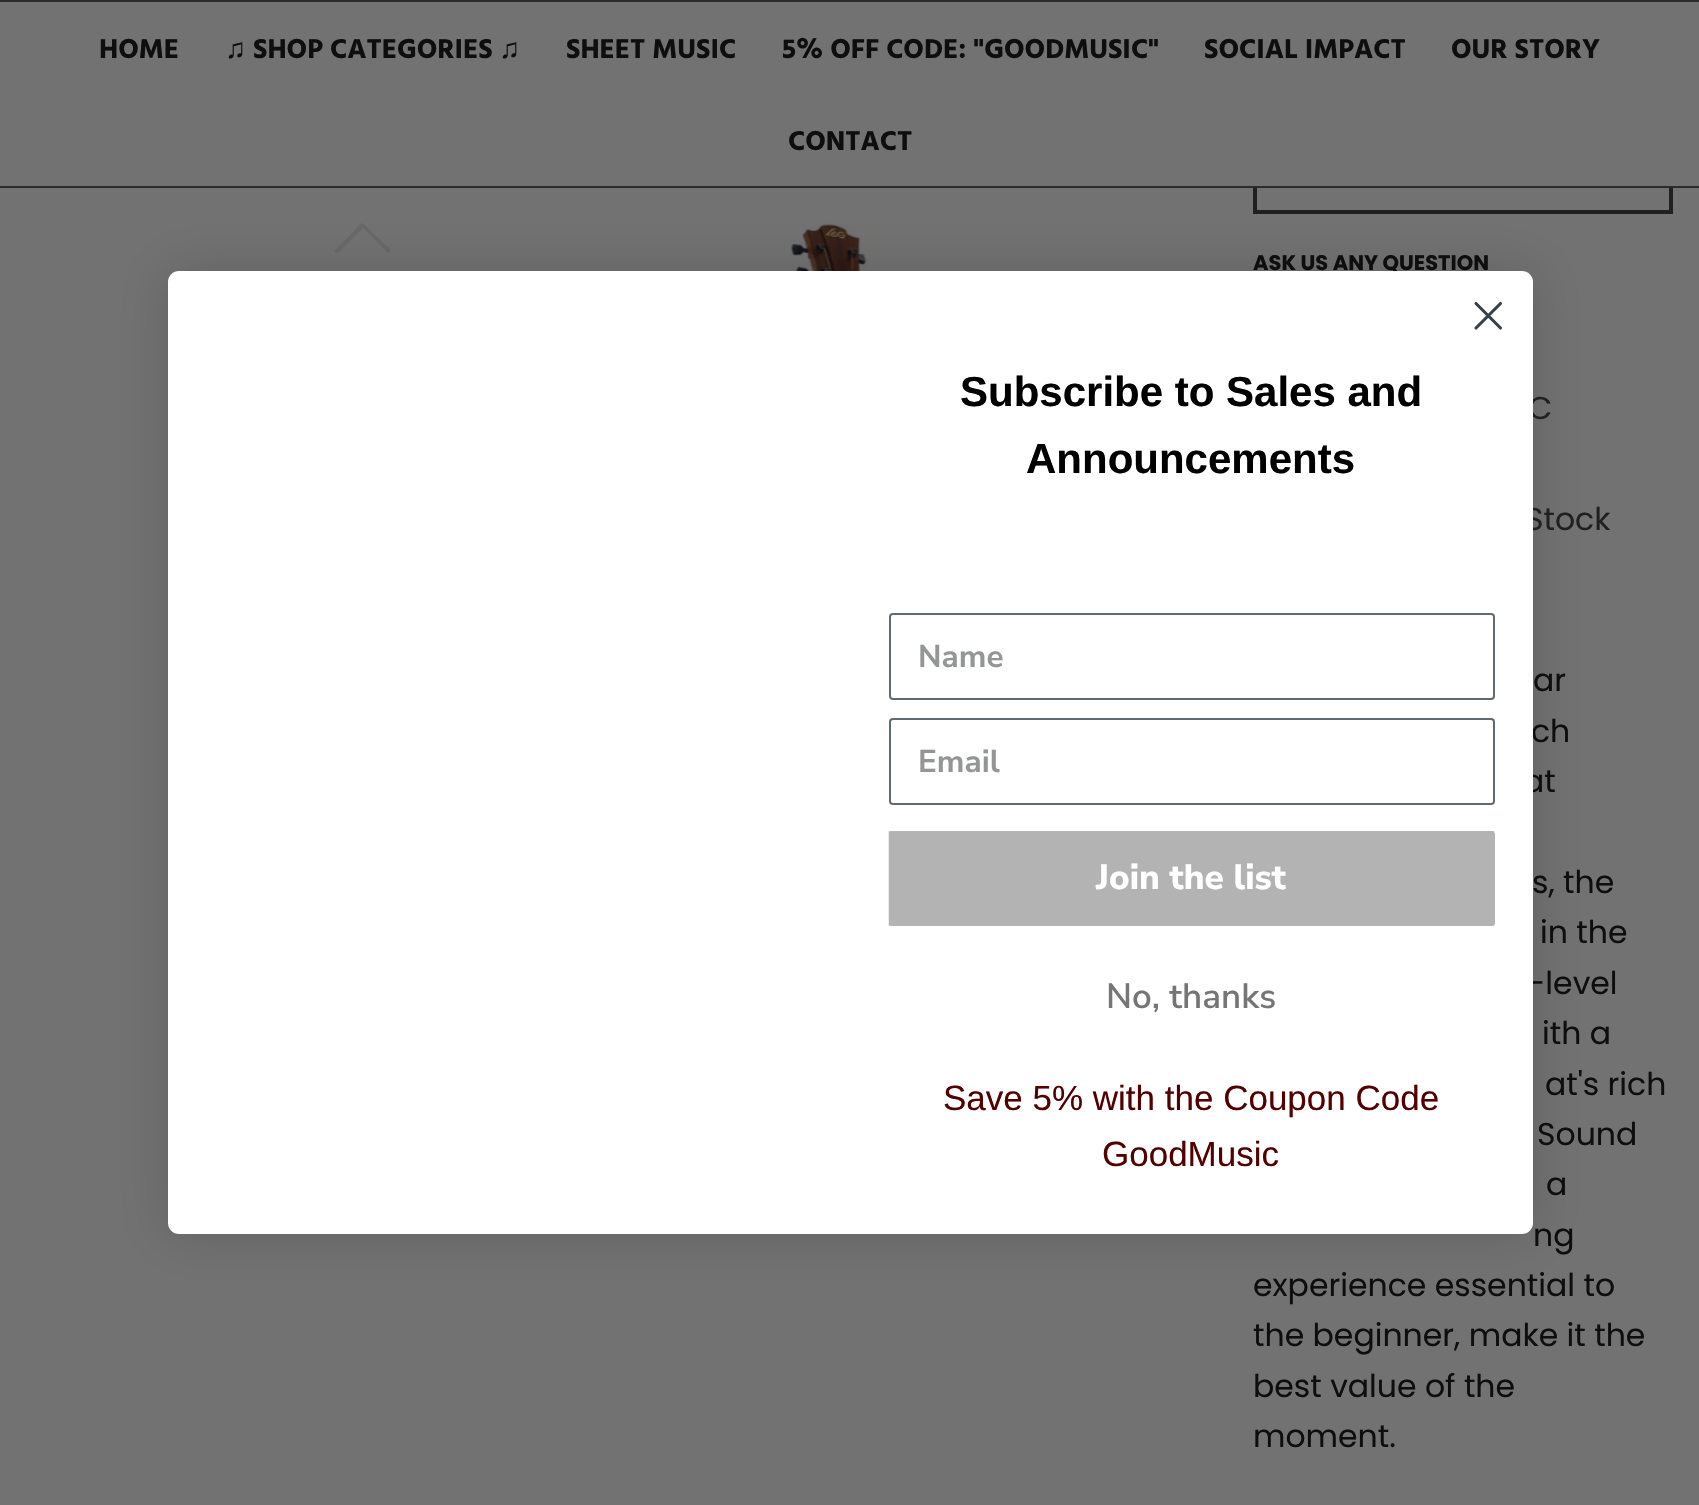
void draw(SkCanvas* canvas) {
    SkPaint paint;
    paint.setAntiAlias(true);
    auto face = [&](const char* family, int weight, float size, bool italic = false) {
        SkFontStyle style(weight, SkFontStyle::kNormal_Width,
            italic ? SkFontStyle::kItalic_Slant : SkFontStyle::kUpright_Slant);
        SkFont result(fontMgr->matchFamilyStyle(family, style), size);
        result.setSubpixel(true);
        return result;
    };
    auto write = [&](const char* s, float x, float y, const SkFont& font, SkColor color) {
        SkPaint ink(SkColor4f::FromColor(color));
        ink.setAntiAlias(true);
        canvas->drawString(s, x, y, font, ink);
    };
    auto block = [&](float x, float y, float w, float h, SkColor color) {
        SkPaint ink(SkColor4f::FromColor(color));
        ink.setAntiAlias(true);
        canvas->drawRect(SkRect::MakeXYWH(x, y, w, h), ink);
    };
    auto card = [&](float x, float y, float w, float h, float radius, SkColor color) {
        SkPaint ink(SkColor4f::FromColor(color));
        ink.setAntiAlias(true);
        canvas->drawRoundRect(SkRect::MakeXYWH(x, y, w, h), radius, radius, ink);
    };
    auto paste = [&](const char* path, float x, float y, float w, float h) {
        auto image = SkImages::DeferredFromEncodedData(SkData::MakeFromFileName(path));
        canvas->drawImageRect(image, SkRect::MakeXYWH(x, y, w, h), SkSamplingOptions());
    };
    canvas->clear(SkColorSetRGB(114, 114, 114));
    paint.setStyle(SkPaint::kStroke_Style);
    paint.setStrokeWidth(4);
    paint.setColor(SkColorSetRGB(32, 32, 32));
    canvas->drawRect(SkRect::MakeXYWH(1255, 128, 416, 84), paint);
    block(1253, 126, 420, 60, SkColorSetRGB(114, 114, 114));
    block(0, 0, 1699, 2, SkColorSetRGB(44, 44, 46));
    block(0, 186, 1699, 2, SkColorSetRGB(44, 44, 46));
    auto kFont1 = face("Hind Vadodara", 700, 28);
    write("HOME", 99, 58, kFont1, SkColorSetRGB(14, 14, 14));
    auto kFont2 = face("Liberation Sans", 700, 28);
    write("♫", 225, 58, kFont2, SkColorSetRGB(14, 14, 14));
    write("SHOP CATEGORIES", 253, 58, kFont1, SkColorSetRGB(14, 14, 14));
    write("♫", 499, 58, kFont2, SkColorSetRGB(14, 14, 14));
    write("SHEET MUSIC", 566, 58, kFont1, SkColorSetRGB(14, 14, 14));
    write("5% OFF CODE: \"GOODMUSIC\"", 782, 58, kFont1, SkColorSetRGB(14, 14, 14));
    write("SOCIAL IMPACT", 1204, 58, kFont1, SkColorSetRGB(14, 14, 14));
    write("OUR STORY", 1451, 58, kFont1, SkColorSetRGB(14, 14, 14));
    write("CONTACT", 788, 150, kFont1, SkColorSetRGB(14, 14, 14));
    paint.setStyle(SkPaint::kFill_Style);
    paint.setColor(SkColorSetRGB(105, 105, 105));
    canvas->drawPath(SkPathBuilder().moveTo(335, 250).cubicTo(334, 252, 335, 253, 337, 253).cubicTo(339, 253, 360, 231, 363, 228).lineTo(388, 253).cubicTo(389, 253, 391, 251, 390, 249).lineTo(368, 228).cubicTo(360, 220, 362, 223, 353, 232).close().detach(), paint);
    paste("pic1.png", 692, 221, 275, 50);
    paint.setColor(SkColorSetARGB(38, 0, 0, 0));
    paint.setMaskFilter(SkMaskFilter::MakeBlur(kNormal_SkBlurStyle, 26));
    canvas->drawRoundRect(SkRect::MakeXYWH(168, 271, 1365, 963), 11, 11, paint);
    paint.setMaskFilter(nullptr);
    auto kFont3 = face("Poppins", 700, 21);
    write("ASK US ANY QUESTION", 1253, 270, kFont3, SkColorSetRGB(14, 14, 14));
    auto kFont4 = face("Poppins", 400, 31.5f);
    write("C", 1528, 419, kFont4, SkColorSetRGB(32, 32, 32));
    write("Stock", 1525, 530, kFont4, SkColorSetRGB(32, 32, 32));
    write("ch", 1531, 742, kFont4, SkColorSetRGB(14, 14, 14));
    write("at", 1523, 792, kFont4, SkColorSetRGB(14, 14, 14));
    write("-level", 1528, 994, kFont4, SkColorSetRGB(14, 14, 14));
    card(168, 271, 1365, 963, 11, SK_ColorWHITE);
    paint.setStyle(SkPaint::kStroke_Style);
    paint.setStrokeWidth(3.1f);
    paint.setStrokeCap(SkPaint::kRound_Cap);
    paint.setStrokeJoin(SkPaint::kRound_Join);
    paint.setColor(SkColorSetRGB(55, 63, 71));
    canvas->drawPath(SkPathBuilder().moveTo(1476, 303.5f).lineTo(1500.5f, 328).moveTo(1476, 328).lineTo(1500.5f, 303.5f).close().detach(), paint);
    auto kFont5 = face("Liberation Sans", 700, 42);
    write("Subscribe to Sales and", 960, 406, kFont5, SK_ColorBLACK);
    write("Announcements", 1026, 473, kFont5, SK_ColorBLACK);
    paint.setStrokeWidth(2);
    paint.setStrokeCap(SkPaint::kButt_Cap);
    paint.setStrokeJoin(SkPaint::kMiter_Join);
    paint.setColor(SkColorSetRGB(96, 106, 114));
    canvas->drawRoundRect(SkRect::MakeXYWH(890, 614, 604, 85), 3, 3, paint);
    auto kFont6 = face("Nunito Sans", 700, 31.5f);
    write("Name", 918, 667, kFont6, SkColorSetRGB(148, 149, 150));
    canvas->drawRoundRect(SkRect::MakeXYWH(890, 719, 604, 85), 3, 3, paint);
    write("Email", 918, 772, kFont6, SkColorSetRGB(148, 149, 150));
    card(889, 831, 606, 95, 4, SkColorSetRGB(179, 179, 179));
    paint.setStrokeWidth(10.5f);
    paint.setColor(SkColorSetRGB(179, 179, 179));
    canvas->drawPath(SkPathBuilder().moveTo(894, 836.5f).lineTo(1489, 836.5f).lineTo(1489, 920.5f).lineTo(894, 920.5f).close().detach(), paint);
    auto kFont7 = face("Nunito Sans", 800, 35);
    write("Join the list", 1096, 889, kFont7, SK_ColorWHITE);
    auto kFont8 = face("Nunito Sans", 600, 35);
    write("No, thanks", 1106, 1008, kFont8, SkColorSetRGB(117, 117, 117));
    auto kFont9 = face("Liberation Sans", 400, 35);
    write("Save 5% with the Coupon Code", 943, 1110, kFont9, SkColorSetRGB(83, 0, 0));
    write("GoodMusic", 1102, 1166, kFont9, SkColorSetRGB(83, 0, 0));
    write("ar", 1533, 691, kFont4, SkColorSetRGB(14, 14, 14));
    write("s, the", 1532, 893, kFont4, SkColorSetRGB(14, 14, 14));
    write("in the", 1540, 943, kFont4, SkColorSetRGB(14, 14, 14));
    write("ith a", 1542, 1044, kFont4, SkColorSetRGB(14, 14, 14));
    write("at's rich", 1545, 1095, kFont4, SkColorSetRGB(14, 14, 14));
    write("Sound", 1537, 1145, kFont4, SkColorSetRGB(14, 14, 14));
    write("a", 1546, 1195, kFont4, SkColorSetRGB(14, 14, 14));
    write("ng", 1533, 1246, kFont4, SkColorSetRGB(14, 14, 14));
    write("experience essential to", 1253, 1296, kFont4, SkColorSetRGB(14, 14, 14));
    write("the beginner, make it the", 1253, 1346, kFont4, SkColorSetRGB(14, 14, 14));
    write("best value of the", 1253, 1397, kFont4, SkColorSetRGB(14, 14, 14));
    write("moment.", 1253, 1447, kFont4, SkColorSetRGB(14, 14, 14));
}
